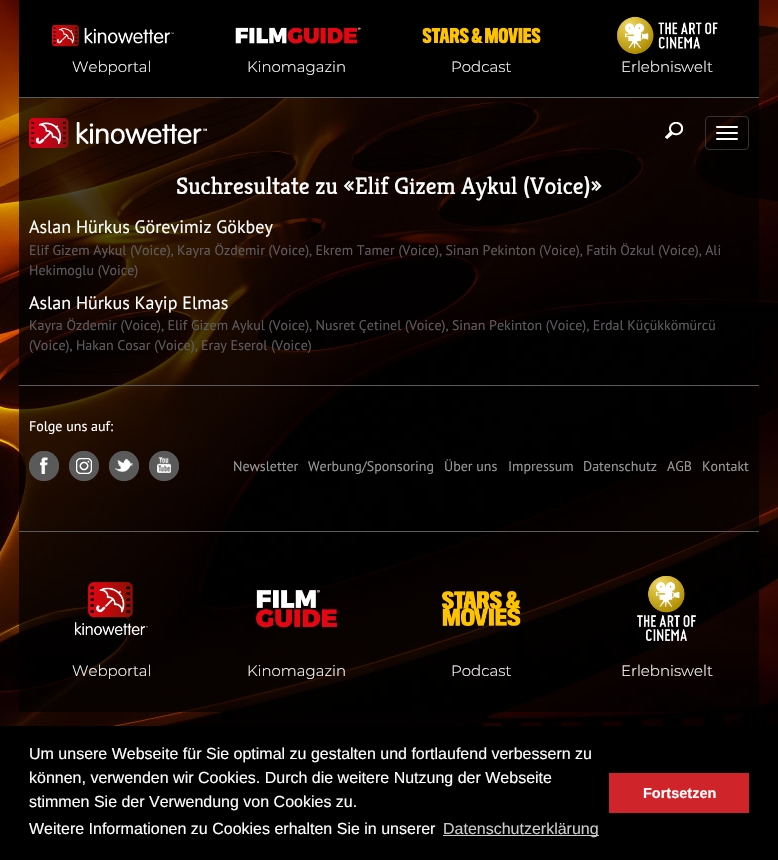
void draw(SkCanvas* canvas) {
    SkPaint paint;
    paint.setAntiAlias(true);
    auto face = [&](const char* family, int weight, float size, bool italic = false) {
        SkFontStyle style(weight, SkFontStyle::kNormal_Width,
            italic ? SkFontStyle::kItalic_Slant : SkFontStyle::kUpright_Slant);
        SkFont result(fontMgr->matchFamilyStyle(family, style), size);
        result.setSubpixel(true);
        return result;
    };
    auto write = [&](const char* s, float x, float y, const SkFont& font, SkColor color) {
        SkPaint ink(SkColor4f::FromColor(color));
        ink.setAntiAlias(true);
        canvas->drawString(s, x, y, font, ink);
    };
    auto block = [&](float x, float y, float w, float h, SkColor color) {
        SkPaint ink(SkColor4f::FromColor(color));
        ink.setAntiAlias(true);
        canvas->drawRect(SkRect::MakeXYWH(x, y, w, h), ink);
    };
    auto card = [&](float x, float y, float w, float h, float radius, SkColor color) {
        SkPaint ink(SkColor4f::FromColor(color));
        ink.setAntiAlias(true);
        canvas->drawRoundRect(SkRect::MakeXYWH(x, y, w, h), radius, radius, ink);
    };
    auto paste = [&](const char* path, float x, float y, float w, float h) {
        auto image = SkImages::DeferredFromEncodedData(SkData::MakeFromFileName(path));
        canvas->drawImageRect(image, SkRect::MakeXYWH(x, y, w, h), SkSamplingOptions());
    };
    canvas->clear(SK_ColorWHITE);
    paste("pic1.png", 0, 0, 778, 726);
    block(19, 0, 740, 97, SK_ColorBLACK);
    paste("pic2.png", 51, 25, 123, 22);
    auto kFont1 = face("Montserrat", 300, 15);
    write("Webportal", 72, 72, kFont1, SK_ColorWHITE);
    paste("pic3.png", 235, 27, 126, 17);
    write("Kinomagazin", 247, 72, kFont1, SK_ColorWHITE);
    paste("pic4.png", 422, 27, 119, 17);
    write("Podcast", 451, 72, kFont1, SK_ColorWHITE);
    paste("pic5.png", 617, 16, 101, 38);
    write("Erlebniswelt", 621, 72, kFont1, SK_ColorWHITE);
    block(19, 97, 740, 1, SkColorSetRGB(94, 91, 94));
    block(19, 98, 740, 70, SkColorSetARGB(179, 0, 0, 0));
    paste("pic6.png", 29, 118, 178, 30);
    paint.setStyle(SkPaint::kStroke_Style);
    paint.setStrokeWidth(1);
    paint.setColor(SkColorSetRGB(51, 51, 51));
    canvas->drawRoundRect(SkRect::MakeXYWH(705.5f, 116.5f, 43, 33), 3.5f, 3.5f, paint);
    card(716, 126, 22, 2, 1, SK_ColorWHITE);
    card(716, 132, 22, 2, 1, SK_ColorWHITE);
    card(716, 138, 22, 2, 1, SK_ColorWHITE);
    paste("pic7.png", 665, 122, 18, 17);
    block(19, 168, 740, 197, SkColorSetARGB(179, 0, 0, 0));
    auto kFont2 = face("Kreon", 300, 24);
    write("Suchresultate zu «Elif Gizem Aykul (Voice)»", 176, 194, kFont2, SK_ColorWHITE);
    auto kFont3 = face("PT Sans", 400, 18);
    write("Aslan Hürkus Görevimiz Gökbey", 29, 233, kFont3, SK_ColorWHITE);
    auto kFont4 = face("PT Sans", 400, 14);
    write("Elif Gizem Aykul (Voice), Kayra Özdemir (Voice), Ekrem Tamer (Voice), Sinan Pekinton (Voice), Fatih Özkul (Voice), Ali", 29, 255, kFont4, SkColorSetRGB(94, 91, 94));
    write("Hekimoglu (Voice)", 29, 275, kFont4, SkColorSetRGB(94, 91, 94));
    write("Aslan Hürkus Kayip Elmas", 29, 309, kFont3, SK_ColorWHITE);
    write("Kayra Özdemir (Voice), Elif Gizem Aykul (Voice), Nusret Çetinel (Voice), Sinan Pekinton (Voice), Erdal Küçükkömürcü", 29, 330, kFont4, SkColorSetRGB(94, 91, 94));
    write("(Voice), Hakan Cosar (Voice), Eray Eserol (Voice)", 29, 350, kFont4, SkColorSetRGB(94, 91, 94));
    block(19, 365, 740, 51, SkColorSetARGB(179, 0, 0, 0));
    block(19, 385, 740, 1, SkColorSetRGB(94, 91, 94));
    block(19, 416, 740, 95, SkColorSetARGB(179, 0, 0, 0));
    write("Folge uns auf:", 29, 431, kFont4, SK_ColorWHITE);
    paste("pic8.png", 29, 451, 30, 30);
    paste("pic9.png", 69, 451, 30, 30);
    paste("pic10.png", 109, 451, 30, 30);
    paste("pic11.png", 149, 451, 30, 30);
    write("Newsletter", 233, 471, kFont4, SkColorSetRGB(153, 153, 153));
    write("Werbung/Sponsoring", 308, 471, kFont4, SkColorSetRGB(153, 153, 153));
    write("Über uns", 444, 471, kFont4, SkColorSetRGB(153, 153, 153));
    write("Impressum", 508, 471, kFont4, SkColorSetRGB(153, 153, 153));
    write("Datenschutz", 583, 471, kFont4, SkColorSetRGB(153, 153, 153));
    write("AGB", 667, 471, kFont4, SkColorSetRGB(153, 153, 153));
    write("Kontakt", 702, 471, kFont4, SkColorSetRGB(153, 153, 153));
    block(19, 511, 740, 51, SkColorSetARGB(179, 0, 0, 0));
    block(19, 531, 740, 1, SkColorSetRGB(94, 91, 94));
    block(19, 562, 740, 150, SkColorSetARGB(179, 0, 0, 0));
    paste("pic12.png", 75, 582, 73, 54);
    write("Webportal", 72, 676, kFont1, SK_ColorWHITE);
    paste("pic13.png", 256, 590, 81, 38);
    write("Kinomagazin", 247, 676, kFont1, SK_ColorWHITE);
    paste("pic14.png", 442, 591, 79, 35);
    write("Podcast", 451, 676, kFont1, SK_ColorWHITE);
    paste("pic15.png", 637, 576, 59, 65);
    write("Erlebniswelt", 621, 676, kFont1, SK_ColorWHITE);
    block(0, 726, 778, 134, SK_ColorBLACK);
    auto kFont5 = face("Liberation Sans", 400, 16);
    write("Um unsere Webseite für Sie optimal zu gestalten und fortlaufend verbessern zu", 29, 759, kFont5, SK_ColorWHITE);
    write("können, verwenden wir Cookies. Durch die weitere Nutzung der Webseite", 29, 783, kFont5, SK_ColorWHITE);
    write("stimmen Sie der Verwendung von Cookies zu.", 29, 807, kFont5, SK_ColorWHITE);
    write("Weitere Informationen zu Cookies erhalten Sie in unserer", 29, 834, kFont5, SK_ColorWHITE);
    block(443, 835, 156, 1, SkColorSetRGB(204, 204, 204));
    write("Datenschutzerklärung", 443, 834, kFont5, SkColorSetRGB(204, 204, 204));
    block(609, 773, 140, 40, SkColorSetRGB(208, 36, 43));
    auto kFont6 = face("Liberation Sans", 700, 14.5f);
    write("Fortsetzen", 643, 798, kFont6, SK_ColorWHITE);
}
